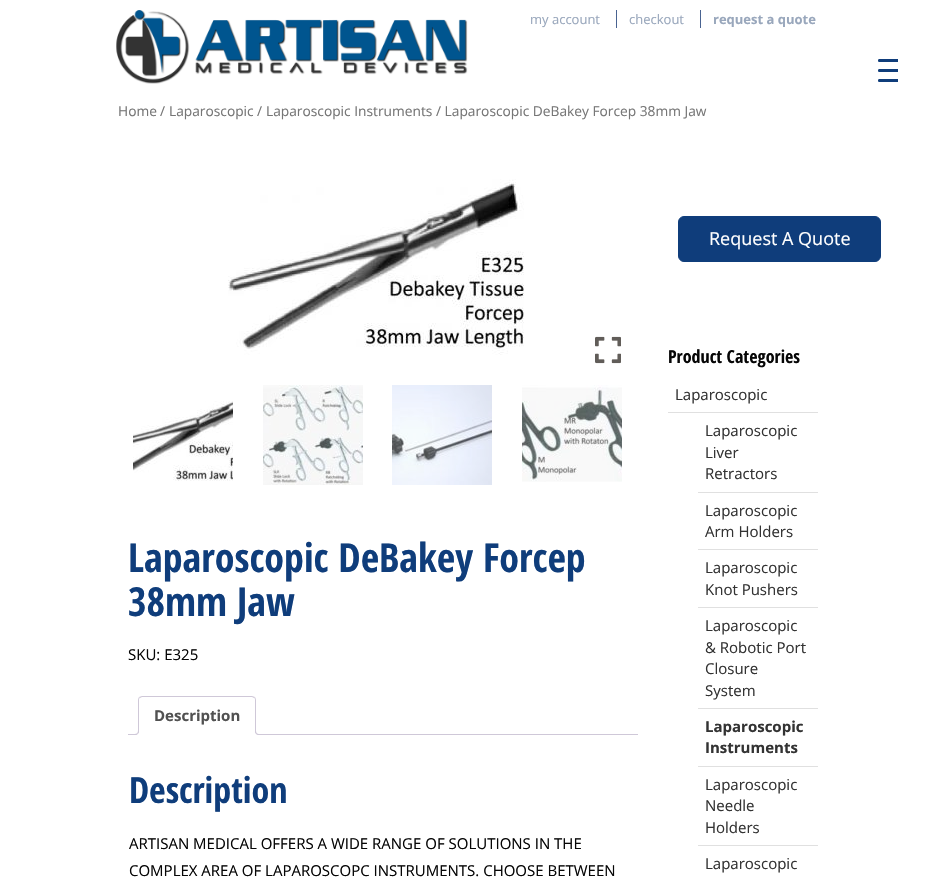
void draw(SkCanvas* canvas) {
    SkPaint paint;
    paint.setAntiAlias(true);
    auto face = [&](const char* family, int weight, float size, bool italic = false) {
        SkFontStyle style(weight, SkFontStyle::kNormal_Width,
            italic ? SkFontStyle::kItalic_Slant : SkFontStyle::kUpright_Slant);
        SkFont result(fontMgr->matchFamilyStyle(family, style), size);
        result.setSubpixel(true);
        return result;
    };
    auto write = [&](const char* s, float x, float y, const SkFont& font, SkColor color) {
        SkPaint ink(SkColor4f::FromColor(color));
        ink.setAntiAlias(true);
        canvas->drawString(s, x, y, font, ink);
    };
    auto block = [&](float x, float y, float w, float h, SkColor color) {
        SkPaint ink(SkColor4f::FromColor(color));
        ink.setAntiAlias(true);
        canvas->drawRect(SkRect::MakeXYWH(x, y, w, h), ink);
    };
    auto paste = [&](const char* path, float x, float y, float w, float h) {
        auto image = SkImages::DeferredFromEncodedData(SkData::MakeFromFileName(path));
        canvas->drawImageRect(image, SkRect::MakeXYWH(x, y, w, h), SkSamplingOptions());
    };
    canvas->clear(SK_ColorWHITE);
    paste("pic1.png", 116, 10, 352, 74);
    auto kFont1 = face("Open Sans", 400, 13);
    write("my account", 530, 24, kFont1, SkColorSetRGB(153, 167, 188));
    write("checkout", 629, 24, kFont1, SkColorSetRGB(153, 167, 188));
    block(616, 10, 1, 18, SkColorSetRGB(73, 99, 145));
    auto kFont2 = face("Open Sans", 700, 13);
    write("request a quote", 713, 24, kFont2, SkColorSetRGB(153, 167, 188));
    block(700, 10, 1, 18, SkColorSetRGB(73, 99, 145));
    auto kFont3 = face("Open Sans", 400, 13.75f);
    write("Home", 118, 116, kFont3, SkColorSetRGB(118, 118, 118));
    write("/", 160, 116, kFont3, SkColorSetRGB(118, 118, 118));
    write("Laparoscopic", 169, 116, kFont3, SkColorSetRGB(118, 118, 118));
    write("/", 257, 116, kFont3, SkColorSetRGB(118, 118, 118));
    write("Laparoscopic Instruments", 266, 116, kFont3, SkColorSetRGB(118, 118, 118));
    write("/ Laparoscopic DeBakey Forcep 38mm Jaw", 436, 116, kFont3, SkColorSetRGB(118, 118, 118));
    paste("pic2.png", 228, 179, 296, 176);
    paste("pic3.png", 595, 336, 26, 28);
    paste("pic4.png", 133, 401, 100, 80);
    paste("pic5.png", 263, 385, 100, 100);
    paste("pic6.png", 392, 385, 100, 100);
    paste("pic7.png", 522, 385, 100, 97);
    auto kFont4 = face("Open Sans Condensed", 700, 40);
    write("Laparoscopic DeBakey Forcep", 128, 572, kFont4, SkColorSetRGB(15, 61, 123));
    write("38mm Jaw", 128, 616, kFont4, SkColorSetRGB(15, 61, 123));
    auto kFont5 = face("Open Sans", 400, 15);
    write("SKU: E325", 128, 660, kFont5, SkColorSetRGB(6, 6, 6));
    block(128, 734, 510, 1, SkColorSetRGB(207, 200, 216));
    paint.setColor(SK_ColorWHITE);
    canvas->drawPath(SkPathBuilder().moveTo(142, 696).lineTo(252, 696).cubicTo(254, 696, 256, 698, 256, 700).lineTo(256, 735).lineTo(138, 735).lineTo(138, 700).cubicTo(138, 698, 140, 696, 142, 696).close().detach(), paint);
    paint.setColor(SkColorSetRGB(207, 200, 216));
    canvas->drawPath(SkPathBuilder().moveTo(142, 696).lineTo(139, 697).lineTo(140, 698).lineTo(142, 697).lineTo(252, 697).lineTo(254, 698).lineTo(255, 697).lineTo(252, 696).close().detach(), paint);
    canvas->drawPath(SkPathBuilder().moveTo(256, 735).lineTo(256, 700).cubicTo(256, 699, 255.5f, 698, 255, 697).lineTo(254, 698).cubicTo(255, 698, 255, 699, 255, 700).lineTo(255, 734).close().detach(), paint);
    paint.setColor(SK_ColorWHITE);
    canvas->drawPath(SkPathBuilder().moveTo(256, 735).lineTo(255, 734).lineTo(139, 734).lineTo(138, 735).close().detach(), paint);
    paint.setColor(SkColorSetRGB(207, 200, 216));
    canvas->drawPath(SkPathBuilder().moveTo(138, 735).lineTo(139, 734).lineTo(139, 700).cubicTo(139, 699, 139, 698, 140, 698).lineTo(139, 697).cubicTo(138.5f, 698, 138, 699, 138, 700).close().detach(), paint);
    auto kFont6 = face("Open Sans", 700, 15);
    write("Description", 154, 721, kFont6, SkColorSetRGB(81, 81, 81));
    canvas->save();
    canvas->clipRect(SkRect::MakeXYWH(128, 696, 510, 39));
    paint.setColor(SK_ColorWHITE);
    canvas->drawPath(SkPathBuilder().moveTo(136, 735).lineTo(136, 737).cubicTo(139.5f, 737, 141, 735.5f, 141, 732).lineTo(139, 732).cubicTo(138.5f, 733.5f, 137.5f, 734.5f, 136, 735).close().detach(), paint);
    canvas->restore();
    paint.setColor(SkColorSetRGB(207, 200, 216));
    canvas->drawPath(SkPathBuilder(SkPathFillType::kEvenOdd).moveTo(134, 730).lineTo(139, 730).cubicTo(139, 733.5f, 137.5f, 735, 134, 735).close().moveTo(134, 730).lineTo(138, 730).cubicTo(138, 733, 137, 734, 134, 734).close().detach(), paint);
    canvas->save();
    canvas->clipRect(SkRect::MakeXYWH(128, 696, 510, 39));
    paint.setColor(SK_ColorWHITE);
    canvas->drawPath(SkPathBuilder().moveTo(253, 732).cubicTo(253, 735.5f, 254.5f, 737, 258, 737).lineTo(258, 735).cubicTo(256.5f, 734.5f, 255.5f, 733.5f, 255, 732).close().detach(), paint);
    canvas->restore();
    paint.setColor(SkColorSetRGB(207, 200, 216));
    canvas->drawPath(SkPathBuilder(SkPathFillType::kEvenOdd).moveTo(255, 730).lineTo(260, 730).lineTo(260, 735).cubicTo(257.5f, 735, 255, 734, 255, 731).close().moveTo(256, 730).lineTo(260, 730).lineTo(260, 734).cubicTo(258, 734, 256, 733.5f, 256, 731).close().detach(), paint);
    auto kFont7 = face("Open Sans Condensed", 700, 36);
    write("Description", 129, 803, kFont7, SkColorSetRGB(15, 61, 123));
    write("ARTISAN MEDICAL OFFERS A WIDE RANGE OF SOLUTIONS IN THE", 129, 849, kFont5, SkColorSetRGB(6, 6, 6));
    write("COMPLEX AREA OF LAPAROSCOPC INSTRUMENTS. CHOOSE BETWEEN", 129, 876, kFont5, SkColorSetRGB(6, 6, 6));
    paint.setColor(SkColorSetRGB(15, 61, 123));
    canvas->drawRoundRect(SkRect::MakeXYWH(678.5f, 216.5f, 202, 45), 5.5f, 5.5f, paint);
    paint.setStyle(SkPaint::kStroke_Style);
    paint.setStrokeWidth(1);
    canvas->drawRoundRect(SkRect::MakeXYWH(678.5f, 216.5f, 202, 45), 5.5f, 5.5f, paint);
    auto kFont8 = face("Open Sans", 400, 18);
    write("Request A Quote", 709, 245, kFont8, SK_ColorWHITE);
    auto kFont9 = face("Open Sans Condensed", 700, 18);
    write("Product Categories", 668, 363, kFont9, SkColorSetRGB(6, 6, 6));
    block(668, 412, 150, 1, SkColorSetRGB(224, 224, 224));
    write("Laparoscopic", 675, 400, kFont5, SkColorSetRGB(51, 51, 51));
    block(698, 492, 120, 1, SkColorSetRGB(224, 224, 224));
    write("Laparoscopic", 705, 436, kFont5, SkColorSetRGB(51, 51, 51));
    write("Liver", 705, 458, kFont5, SkColorSetRGB(51, 51, 51));
    write("Retractors", 705, 479, kFont5, SkColorSetRGB(51, 51, 51));
    block(698, 549, 120, 1, SkColorSetRGB(224, 224, 224));
    write("Laparoscopic", 705, 516, kFont5, SkColorSetRGB(51, 51, 51));
    write("Arm Holders", 705, 537, kFont5, SkColorSetRGB(51, 51, 51));
    block(698, 607, 120, 1, SkColorSetRGB(224, 224, 224));
    write("Laparoscopic", 705, 573, kFont5, SkColorSetRGB(51, 51, 51));
    write("Knot Pushers", 705, 595, kFont5, SkColorSetRGB(51, 51, 51));
    block(698, 708, 120, 1, SkColorSetRGB(224, 224, 224));
    write("Laparoscopic", 705, 631, kFont5, SkColorSetRGB(51, 51, 51));
    write("& Robotic Port", 705, 653, kFont5, SkColorSetRGB(51, 51, 51));
    write("Closure", 705, 674, kFont5, SkColorSetRGB(51, 51, 51));
    write("System", 705, 696, kFont5, SkColorSetRGB(51, 51, 51));
    block(698, 766, 120, 1, SkColorSetRGB(224, 224, 224));
    write("Laparoscopic", 705, 732, kFont6, SkColorSetRGB(51, 51, 51));
    write("Instruments", 705, 753, kFont6, SkColorSetRGB(51, 51, 51));
    block(698, 845, 120, 1, SkColorSetRGB(224, 224, 224));
    write("Laparoscopic", 705, 790, kFont5, SkColorSetRGB(51, 51, 51));
    write("Needle", 705, 811, kFont5, SkColorSetRGB(51, 51, 51));
    write("Holders", 705, 833, kFont5, SkColorSetRGB(51, 51, 51));
    write("Laparoscopic", 705, 869, kFont5, SkColorSetRGB(51, 51, 51));
    paint.setStyle(SkPaint::kFill_Style);
    canvas->drawPath(SkPathBuilder().moveTo(879.5f, 69).lineTo(898, 69).lineTo(898, 72).lineTo(879.5f, 72).cubicTo(878.5f, 72, 878, 71.5f, 878, 70.5f).cubicTo(878, 69.5f, 878.5f, 69, 879.5f, 69).close().detach(), paint);
    canvas->drawPath(SkPathBuilder().moveTo(879.5f, 59).lineTo(898, 59).lineTo(898, 62).lineTo(879.5f, 62).cubicTo(878.5f, 62, 878, 61.5f, 878, 60.5f).cubicTo(878, 59.5f, 878.5f, 59, 879.5f, 59).close().detach(), paint);
    canvas->drawPath(SkPathBuilder().moveTo(879.5f, 79).lineTo(898, 79).lineTo(898, 82).lineTo(879.5f, 82).cubicTo(878.5f, 82, 878, 81.5f, 878, 80.5f).cubicTo(878, 79.5f, 878.5f, 79, 879.5f, 79).close().detach(), paint);
}
